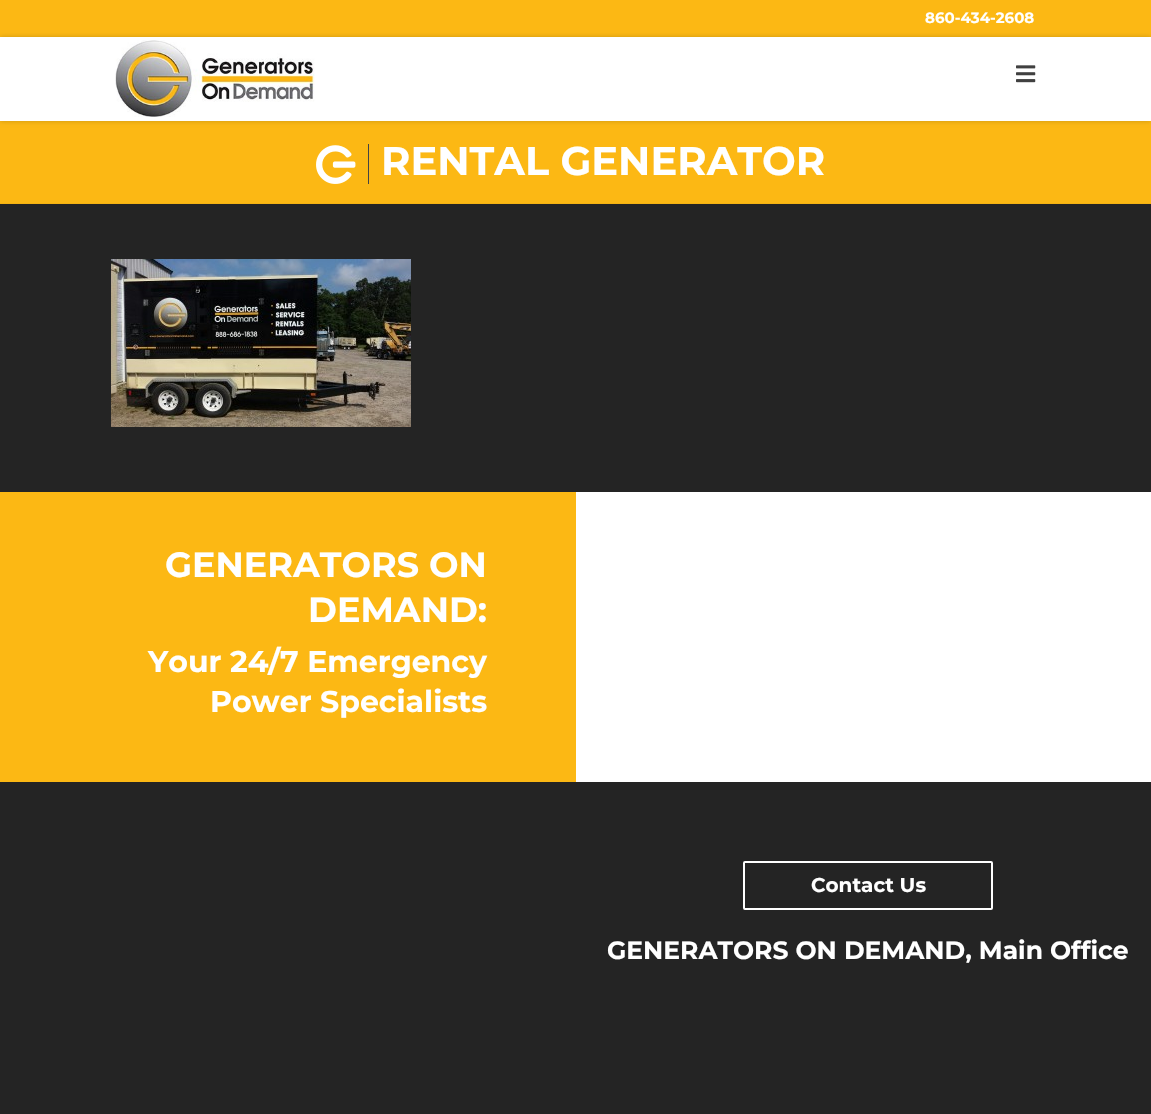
void draw(SkCanvas* canvas) {
    SkPaint paint;
    paint.setAntiAlias(true);
    auto face = [&](const char* family, int weight, float size, bool italic = false) {
        SkFontStyle style(weight, SkFontStyle::kNormal_Width,
            italic ? SkFontStyle::kItalic_Slant : SkFontStyle::kUpright_Slant);
        SkFont result(fontMgr->matchFamilyStyle(family, style), size);
        result.setSubpixel(true);
        return result;
    };
    auto write = [&](const char* s, float x, float y, const SkFont& font, SkColor color) {
        SkPaint ink(SkColor4f::FromColor(color));
        ink.setAntiAlias(true);
        canvas->drawString(s, x, y, font, ink);
    };
    auto block = [&](float x, float y, float w, float h, SkColor color) {
        SkPaint ink(SkColor4f::FromColor(color));
        ink.setAntiAlias(true);
        canvas->drawRect(SkRect::MakeXYWH(x, y, w, h), ink);
    };
    auto paste = [&](const char* path, float x, float y, float w, float h) {
        auto image = SkImages::DeferredFromEncodedData(SkData::MakeFromFileName(path));
        canvas->drawImageRect(image, SkRect::MakeXYWH(x, y, w, h), SkSamplingOptions());
    };
    canvas->clear(SkColorSetRGB(36, 36, 36));
    block(0, 0, 1151, 37, SkColorSetRGB(252, 184, 20));
    auto kFont1 = face("Montserrat", 700, 15);
    write("860-434-2608", 925, 23, kFont1, SK_ColorWHITE);
    block(0, 121, 1151, 82, SkColorSetRGB(252, 184, 20));
    paint.setColor(SkColorSetARGB(48, 0, 0, 0));
    paint.setMaskFilter(SkMaskFilter::MakeBlur(kNormal_SkBlurStyle, 2.5f));
    canvas->drawRect(SkRect::MakeXYWH(0, 37, 1151, 84), paint);
    paint.setMaskFilter(nullptr);
    block(0, 37, 1151, 84, SK_ColorWHITE);
    paste("pic1.png", 115, 40, 200, 77);
    paste("pic2.png", 1016, 65, 20, 18);
    block(0, 203, 1151, 1, SkColorSetRGB(244, 178, 19));
    block(368, 144, 1, 40, SkColorSetRGB(68, 68, 68));
    paste("pic3.png", 316, 145, 40, 39);
    auto kFont2 = face("Montserrat", 700, 40);
    write("RENTAL GENERATOR", 381, 175, kFont2, SK_ColorWHITE);
    paste("pic4.png", 111, 259, 300, 168);
    block(0, 492, 576, 290, SkColorSetRGB(252, 184, 20));
    auto kFont3 = face("Montserrat", 700, 35);
    write("GENERATORS ON", 165, 577, kFont3, SK_ColorWHITE);
    write("DEMAND:", 308, 622, kFont3, SK_ColorWHITE);
    auto kFont4 = face("Montserrat", 700, 30);
    write("Your 24/7 Emergency", 148, 672, kFont4, SK_ColorWHITE);
    write("Power Specialists", 210, 712, kFont4, SK_ColorWHITE);
    block(576, 492, 575, 290, SK_ColorWHITE);
    paint.setStyle(SkPaint::kStroke_Style);
    paint.setStrokeWidth(2);
    paint.setColor(SK_ColorWHITE);
    canvas->drawRoundRect(SkRect::MakeXYWH(744, 862, 248, 47), 1, 1, paint);
    auto kFont5 = face("Montserrat", 700, 20);
    write("Contact Us", 811, 892, kFont5, SK_ColorWHITE);
    auto kFont6 = face("Montserrat", 700, 25);
    write("GENERATORS ON DEMAND, Main Office", 607, 959, kFont6, SK_ColorWHITE);
}
